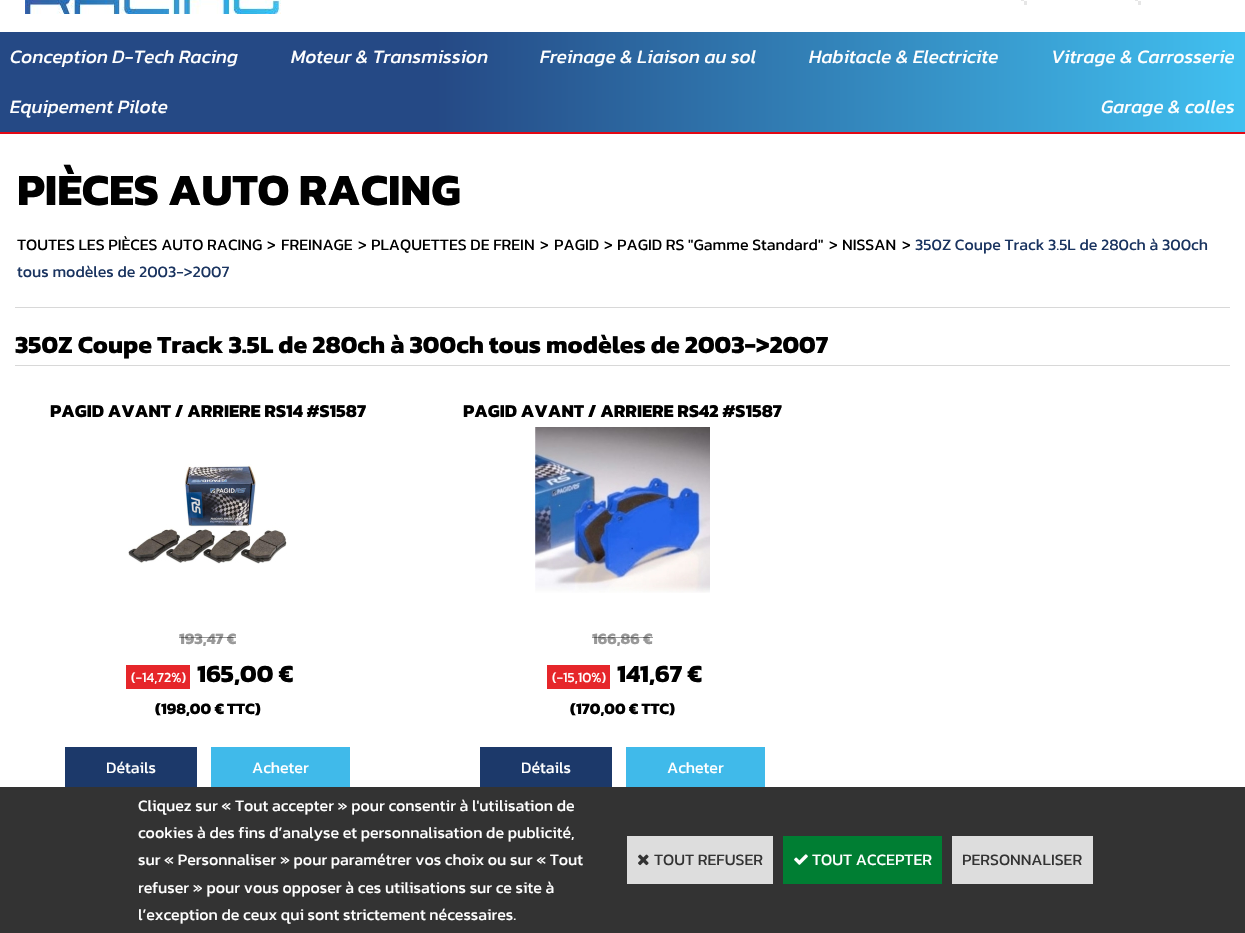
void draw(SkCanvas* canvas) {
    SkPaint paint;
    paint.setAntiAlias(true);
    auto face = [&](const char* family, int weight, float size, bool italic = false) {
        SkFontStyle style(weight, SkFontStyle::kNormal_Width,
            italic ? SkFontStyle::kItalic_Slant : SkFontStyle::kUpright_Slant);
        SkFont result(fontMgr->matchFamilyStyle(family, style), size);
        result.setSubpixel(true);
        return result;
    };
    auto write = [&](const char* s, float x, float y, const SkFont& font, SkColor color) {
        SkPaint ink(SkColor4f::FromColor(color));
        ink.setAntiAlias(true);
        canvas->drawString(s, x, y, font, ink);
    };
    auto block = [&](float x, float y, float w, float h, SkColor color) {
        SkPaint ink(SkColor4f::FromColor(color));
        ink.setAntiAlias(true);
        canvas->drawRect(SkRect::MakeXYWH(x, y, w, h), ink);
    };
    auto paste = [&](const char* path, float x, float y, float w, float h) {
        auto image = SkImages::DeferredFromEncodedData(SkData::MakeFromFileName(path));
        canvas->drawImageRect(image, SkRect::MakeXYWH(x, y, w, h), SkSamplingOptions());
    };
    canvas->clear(SK_ColorWHITE);
    paste("pic1.png", 25, 0, 256, 14);
    paste("pic2.png", 1021, 0, 6, 5);
    paste("pic2.png", 1135, 0, 6, 5);
    {
        const SkColor colors[] = {SkColorSetRGB(65, 192, 240), SkColorSetRGB(37, 73, 133)};
        const float stops[] = {0, 0.65f};
        const SkPoint ends[] = {{1245, 83}, {0, 83}};
        paint.setShader(SkGradientShader::MakeLinear(ends, colors, stops, 2, SkTileMode::kClamp));
        paint.setAlpha(255);
    }
    canvas->drawRect(SkRect::MakeXYWH(0, 32, 1245, 100), paint);
    block(0, 132, 1245, 2, SkColorSetRGB(227, 8, 20));
    auto kFont1 = face("Kanit", 400, 19, true);
    write("Conception D-Tech Racing", 10, 63, kFont1, SK_ColorWHITE);
    write("Moteur & Transmission", 291, 63, kFont1, SK_ColorWHITE);
    write("Freinage & Liaison au sol", 540, 63, kFont1, SK_ColorWHITE);
    write("Habitacle & Electricite", 809, 63, kFont1, SK_ColorWHITE);
    write("Vitrage & Carrosserie", 1051, 63, kFont1, SK_ColorWHITE);
    write("Equipement Pilote", 10, 113, kFont1, SK_ColorWHITE);
    write("Garage & colles", 1101, 113, kFont1, SK_ColorWHITE);
    block(15, 307, 1215, 1, SkColorSetRGB(216, 216, 216));
    auto kFont2 = face("Kanit", 700, 45);
    write("PIÈCES AUTO RACING", 17, 205, kFont2, SK_ColorBLACK);
    auto kFont3 = face("Kanit", 400, 16);
    write("TOUTES LES PIÈCES AUTO RACING", 17, 250, kFont3, SK_ColorBLACK);
    write(">", 267, 250, kFont3, SK_ColorBLACK);
    write("FREINAGE", 281, 250, kFont3, SK_ColorBLACK);
    write(">", 358, 250, kFont3, SK_ColorBLACK);
    write("PLAQUETTES DE FREIN", 371, 250, kFont3, SK_ColorBLACK);
    write(">", 540, 250, kFont3, SK_ColorBLACK);
    write("PAGID", 554, 250, kFont3, SK_ColorBLACK);
    write(">", 604, 250, kFont3, SK_ColorBLACK);
    write("PAGID RS \"Gamme Standard\"", 617, 250, kFont3, SK_ColorBLACK);
    write(">", 829, 250, kFont3, SK_ColorBLACK);
    write("NISSAN", 842, 250, kFont3, SK_ColorBLACK);
    write(">", 902, 250, kFont3, SK_ColorBLACK);
    write("350Z Coupe Track 3.5L de 280ch à 300ch", 915, 250, kFont3, SkColorSetRGB(26, 52, 96));
    write("tous modèles de 2003->2007", 17, 277, kFont3, SkColorSetRGB(26, 52, 96));
    block(15, 365, 1215, 1, SkColorSetRGB(216, 216, 216));
    auto kFont4 = face("Kanit", 700, 25);
    write("350Z Coupe Track 3.5L de 280ch à 300ch tous modèles de 2003->2007", 15, 353, kFont4, SK_ColorBLACK);
    auto kFont5 = face("Kanit", 700, 18.25f);
    write("PAGID AVANT / ARRIERE RS14 #S1587", 50, 417, kFont5, SK_ColorBLACK);
    paste("pic3.png", 128, 464, 160, 100);
    auto kFont6 = face("Kanit", 700, 16);
    write("193,47 €", 179, 644, kFont6, SkColorSetRGB(153, 153, 153));
    block(179, 637, 57, 1, SkColorSetARGB(102, 0, 0, 0));
    block(126, 665, 64, 24, SkColorSetRGB(230, 38, 42));
    auto kFont7 = face("Kanit", 400, 14);
    write("(-14,72%)", 131, 682, kFont7, SK_ColorWHITE);
    write("165,00 €", 197, 682, kFont4, SK_ColorBLACK);
    write("(198,00 € TTC)", 155, 714, kFont6, SK_ColorBLACK);
    block(65, 747, 132, 40, SkColorSetRGB(28, 57, 106));
    write("Détails", 106, 773, kFont3, SK_ColorWHITE);
    block(211, 747, 139, 40, SkColorSetRGB(64, 186, 234));
    write("Acheter", 252, 773, kFont3, SK_ColorWHITE);
    write("PAGID AVANT / ARRIERE RS42 #S1587", 463, 417, kFont5, SK_ColorBLACK);
    paste("pic4.png", 535, 427, 175, 166);
    write("166,86 €", 592, 644, kFont6, SkColorSetRGB(153, 153, 153));
    block(592, 637, 61, 1, SkColorSetARGB(102, 0, 0, 0));
    block(547, 665, 63, 24, SkColorSetRGB(230, 38, 42));
    write("(-15,10%)", 552, 682, kFont7, SK_ColorWHITE);
    write("141,67 €", 617, 682, kFont4, SK_ColorBLACK);
    write("(170,00 € TTC)", 570, 714, kFont6, SK_ColorBLACK);
    block(480, 747, 132, 40, SkColorSetRGB(28, 57, 106));
    write("Détails", 521, 773, kFont3, SK_ColorWHITE);
    block(626, 747, 139, 40, SkColorSetRGB(64, 186, 234));
    write("Acheter", 667, 773, kFont3, SK_ColorWHITE);
    block(0, 787, 1245, 146, SkColorSetRGB(51, 51, 51));
    write("Cliquez sur « Tout accepter » pour consentir à l'utilisation de", 138, 811, kFont3, SK_ColorWHITE);
    write("cookies à des fins d’analyse et personnalisation de publicité,", 138, 838, kFont3, SK_ColorWHITE);
    write("sur « Personnaliser » pour paramétrer vos choix ou sur « Tout", 138, 865, kFont3, SK_ColorWHITE);
    write("refuser » pour vous opposer à ces utilisations sur ce site à", 138, 893, kFont3, SK_ColorWHITE);
    write("l’exception de ceux qui sont strictement nécessaires.", 138, 920, kFont3, SK_ColorWHITE);
    block(627, 836, 146, 48, SkColorSetRGB(221, 221, 221));
    paste("pic5.png", 638, 854, 11, 12);
    write("TOUT REFUSER", 654, 865, kFont3, SkColorSetRGB(51, 51, 51));
    block(783, 836, 159, 48, SkColorSetRGB(0, 126, 51));
    paste("pic6.png", 794, 854, 14, 11);
    write("TOUT ACCEPTER", 812, 865, kFont3, SK_ColorWHITE);
    block(952, 836, 141, 48, SkColorSetRGB(221, 221, 221));
    write("PERSONNALISER", 962, 865, kFont3, SkColorSetRGB(51, 51, 51));
}
